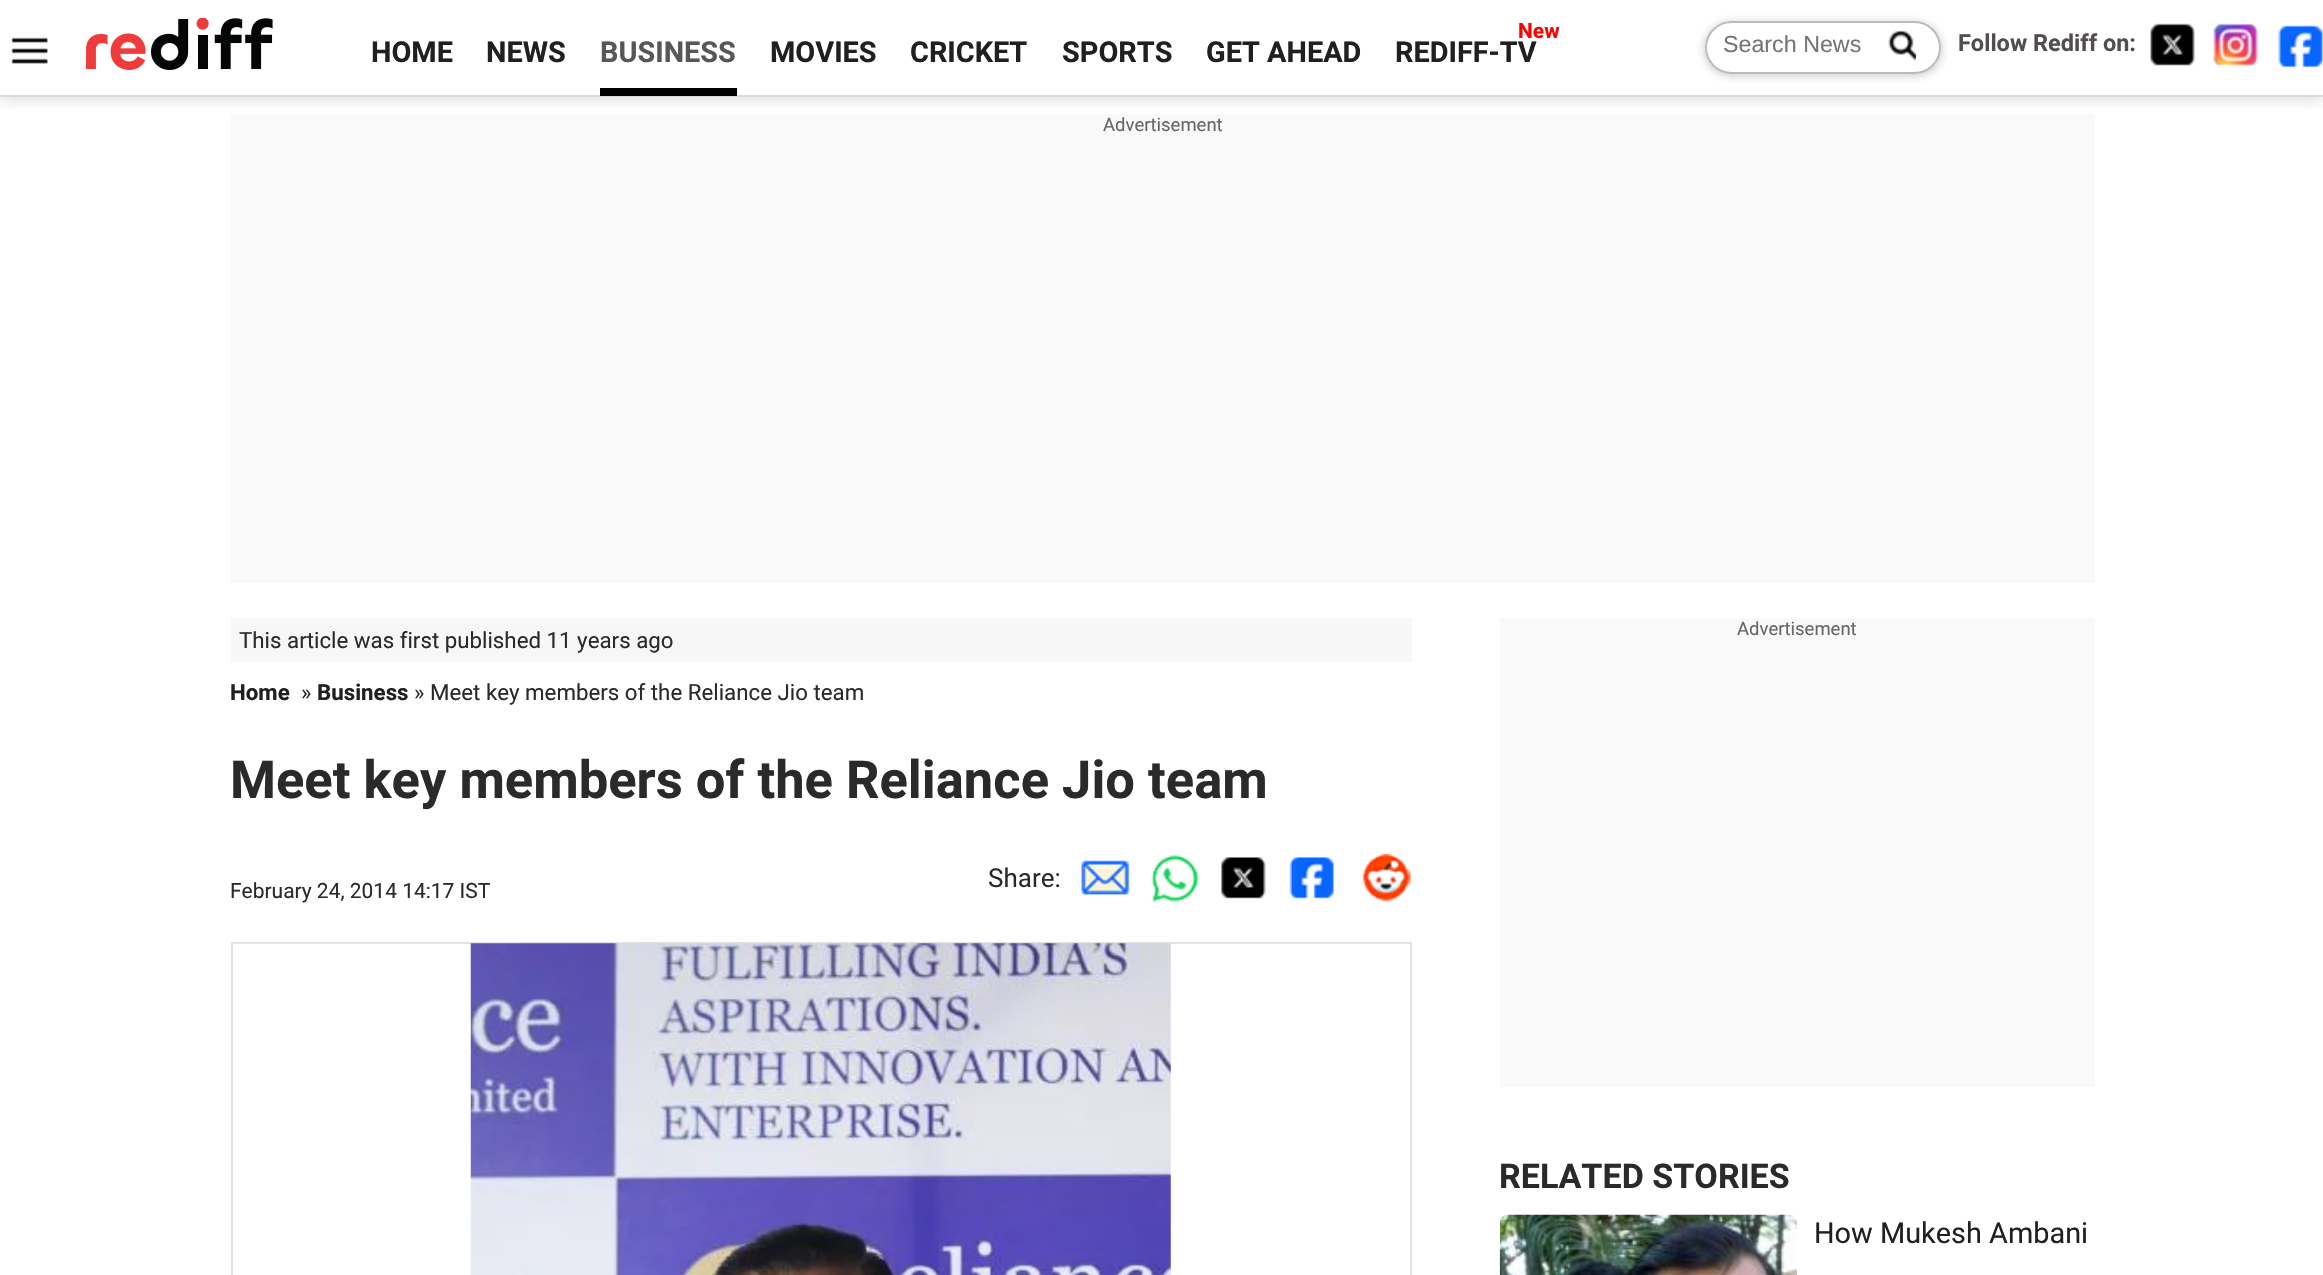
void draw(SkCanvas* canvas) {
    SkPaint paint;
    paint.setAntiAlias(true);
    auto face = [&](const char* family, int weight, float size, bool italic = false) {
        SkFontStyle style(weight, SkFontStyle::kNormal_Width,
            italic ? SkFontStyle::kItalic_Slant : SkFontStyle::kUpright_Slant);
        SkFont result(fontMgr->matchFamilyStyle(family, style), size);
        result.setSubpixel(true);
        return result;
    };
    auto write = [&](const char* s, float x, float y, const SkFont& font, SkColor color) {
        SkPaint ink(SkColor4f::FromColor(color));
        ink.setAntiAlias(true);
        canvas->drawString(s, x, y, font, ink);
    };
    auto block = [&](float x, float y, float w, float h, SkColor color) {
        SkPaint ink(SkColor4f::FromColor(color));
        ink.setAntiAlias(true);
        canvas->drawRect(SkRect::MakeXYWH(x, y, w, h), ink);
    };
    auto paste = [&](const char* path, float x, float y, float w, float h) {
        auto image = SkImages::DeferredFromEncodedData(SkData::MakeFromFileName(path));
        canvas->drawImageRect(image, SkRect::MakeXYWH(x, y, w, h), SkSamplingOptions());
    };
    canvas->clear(SK_ColorWHITE);
    block(231, 114, 1864, 469, SkColorSetRGB(249, 249, 249));
    canvas->save();
    canvas->clipRect(SkRect::MakeXYWH(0, 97, 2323, 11));
    paint.setColor(SkColorSetARGB(51, 0, 0, 0));
    paint.setMaskFilter(SkMaskFilter::MakeBlur(kNormal_SkBlurStyle, 9));
    canvas->drawRect(SkRect::MakeXYWH(0, 0, 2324, 96), paint);
    paint.setMaskFilter(nullptr);
    canvas->restore();
    block(0, 95, 2323, 2, SkColorSetRGB(219, 219, 219));
    paste("pic1.png", 11, 37, 37, 27);
    paste("pic2.png", 86, 18, 187, 52);
    auto kFont1 = face("Roboto", 700, 28.9f);
    write("HOME", 371, 62, kFont1, SkColorSetRGB(32, 32, 32));
    write("NEWS", 486, 62, kFont1, SkColorSetRGB(32, 32, 32));
    write("BUSINESS", 600, 62, kFont1, SkColorSetRGB(87, 87, 87));
    block(600, 88, 137, 8, SK_ColorBLACK);
    write("MOVIES", 770, 62, kFont1, SkColorSetRGB(32, 32, 32));
    write("CRICKET", 910, 62, kFont1, SkColorSetRGB(32, 32, 32));
    write("SPORTS", 1062, 62, kFont1, SkColorSetRGB(32, 32, 32));
    write("GET AHEAD", 1206, 62, kFont1, SkColorSetRGB(32, 32, 32));
    auto kFont2 = face("Roboto", 700, 21);
    write("New", 1518, 38, kFont2, SkColorSetRGB(255, 0, 0));
    write("REDIFF-TV", 1395, 62, kFont1, SkColorSetRGB(32, 32, 32));
    canvas->save();
    canvas->clipPath(SkPathBuilder(SkPathFillType::kEvenOdd).moveTo(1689, 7).lineTo(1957, 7).lineTo(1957, 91).lineTo(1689, 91).close().moveTo(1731.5f, 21).lineTo(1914.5f, 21).cubicTo(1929, 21, 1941, 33, 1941, 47.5f).cubicTo(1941, 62, 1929, 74, 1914.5f, 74).lineTo(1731.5f, 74).cubicTo(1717, 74, 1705, 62, 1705, 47.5f).cubicTo(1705, 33, 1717, 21, 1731.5f, 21).close().detach(), true);
    paint.setColor(SkColorSetARGB(71, 32, 33, 36));
    paint.setMaskFilter(SkMaskFilter::MakeBlur(kNormal_SkBlurStyle, 5));
    canvas->drawRoundRect(SkRect::MakeXYWH(1705, 23, 236, 52), 26, 26, paint);
    paint.setMaskFilter(nullptr);
    canvas->restore();
    paint.setStyle(SkPaint::kStroke_Style);
    paint.setStrokeWidth(2);
    paint.setColor(SkColorSetRGB(187, 187, 187));
    canvas->drawRoundRect(SkRect::MakeXYWH(1706, 22, 234, 51), 25.5f, 25.5f, paint);
    auto kFont3 = face("Liberation Sans", 400, 23.25f);
    write("Search News", 1723, 52, kFont3, SkColorSetRGB(117, 117, 117));
    paste("pic3.png", 1888, 30, 29, 31);
    auto kFont4 = face("Roboto", 700, 23.5f);
    write("Follow Rediff on:", 1958, 51, kFont4, SkColorSetRGB(83, 78, 78));
    paste("pic4.png", 2150, 23, 45, 43);
    paste("pic5.png", 2213, 23, 45, 43);
    paste("pic6.png", 2278, 25, 45, 42);
    auto kFont5 = face("Roboto", 400, 18.5f);
    write("Advertisement", 1103, 131, kFont5, SkColorSetRGB(102, 102, 102));
    block(231, 618, 1181, 44, SkColorSetRGB(247, 247, 247));
    auto kFont6 = face("Roboto", 400, 22.3f);
    write("This article was first published 11 years ago", 239, 648, kFont6, SkColorSetRGB(42, 42, 42));
    auto kFont7 = face("Roboto", 700, 22.3f);
    write("Home", 230, 700, kFont7, SkColorSetRGB(32, 32, 32));
    write("»", 301, 700, kFont6, SkColorSetRGB(42, 42, 42));
    write("Business", 317, 700, kFont7, SkColorSetRGB(32, 32, 32));
    write("» Meet key members of the Reliance Jio team", 414, 700, kFont6, SkColorSetRGB(42, 42, 42));
    auto kFont8 = face("Roboto", 700, 52.5f);
    write("Meet key members of the Reliance Jio team", 230, 798, kFont8, SkColorSetRGB(42, 42, 42));
    auto kFont9 = face("Roboto", 400, 26);
    write("Share:", 988, 887, kFont9, SkColorSetRGB(42, 42, 42));
    paste("pic7.png", 1081, 860, 49, 35);
    paste("pic8.png", 1151, 854, 49, 49);
    paste("pic9.png", 1221, 857, 45, 42);
    paste("pic10.png", 1289, 857, 45, 42);
    paste("pic11.png", 1362, 854, 49, 48);
    auto kFont10 = face("Roboto", 400, 21);
    write("February 24, 2014 14:17 IST", 230, 898, kFont10, SkColorSetRGB(42, 42, 42));
    paint.setColor(SkColorSetRGB(226, 226, 226));
    canvas->drawRect(SkRect::MakeXYWH(232, 943, 1179, 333), paint);
    paste("pic12.png", 470, 943, 701, 332);
    block(1500, 618, 595, 469, SkColorSetRGB(249, 249, 249));
    write("Advertisement", 1737, 635, kFont5, SkColorSetRGB(102, 102, 102));
    auto kFont11 = face("Roboto", 700, 34.1f);
    write("RELATED STORIES", 1499, 1188, kFont11, SkColorSetRGB(42, 42, 42));
    paste("pic13.png", 1499, 1214, 299, 61);
    auto kFont12 = face("Roboto", 400, 28.9f);
    write("How Mukesh Ambani", 1814, 1243, kFont12, SkColorSetRGB(32, 32, 32));
}
